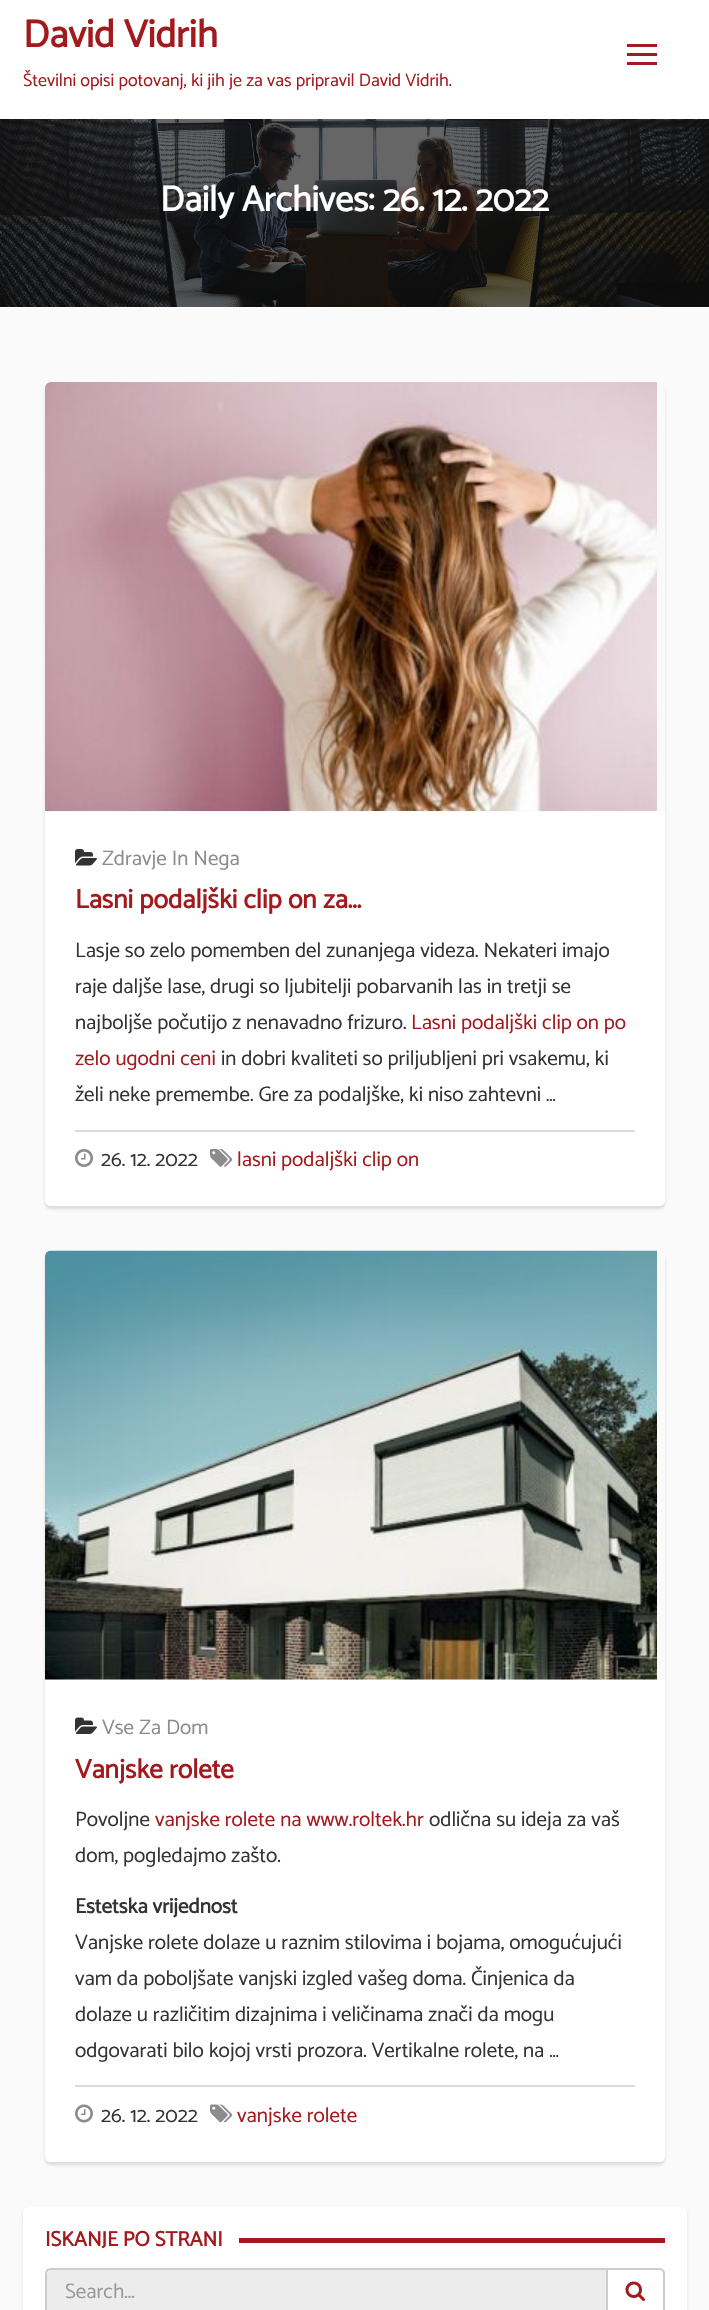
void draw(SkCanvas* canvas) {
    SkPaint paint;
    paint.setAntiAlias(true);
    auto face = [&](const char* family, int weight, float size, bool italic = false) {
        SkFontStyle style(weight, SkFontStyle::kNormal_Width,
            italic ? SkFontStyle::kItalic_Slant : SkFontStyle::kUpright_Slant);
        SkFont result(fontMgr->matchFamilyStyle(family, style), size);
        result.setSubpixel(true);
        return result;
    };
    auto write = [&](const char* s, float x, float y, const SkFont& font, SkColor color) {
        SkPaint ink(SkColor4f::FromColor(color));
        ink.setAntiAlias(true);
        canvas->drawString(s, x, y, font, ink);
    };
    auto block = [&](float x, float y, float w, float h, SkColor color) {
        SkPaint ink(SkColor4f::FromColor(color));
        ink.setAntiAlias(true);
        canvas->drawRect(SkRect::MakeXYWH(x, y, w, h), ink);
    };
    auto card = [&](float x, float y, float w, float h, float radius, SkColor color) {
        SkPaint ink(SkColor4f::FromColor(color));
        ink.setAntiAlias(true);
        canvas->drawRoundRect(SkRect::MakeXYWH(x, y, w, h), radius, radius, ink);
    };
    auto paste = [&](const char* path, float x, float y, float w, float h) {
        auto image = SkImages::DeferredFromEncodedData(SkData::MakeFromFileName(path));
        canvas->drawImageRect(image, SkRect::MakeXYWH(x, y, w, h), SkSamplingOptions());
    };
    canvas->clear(SK_ColorWHITE);
    auto kFont1 = face("Catamaran", 700, 39);
    write("David Vidrih", 23, 47, kFont1, SkColorSetRGB(163, 26, 30));
    auto kFont2 = face("Catamaran", 100, 18);
    write("Številni opisi potovanj, ki jih je za vas pripravil David Vidrih.", 23, 86, kFont2, SkColorSetRGB(163, 26, 30));
    block(627, 44, 30, 3, SkColorSetRGB(163, 26, 30));
    block(627, 53, 30, 3, SkColorSetRGB(163, 26, 30));
    block(627, 62, 30, 3, SkColorSetRGB(163, 26, 30));
    paste("pic1.png", 0, 119, 709, 188);
    auto kFont3 = face("Catamaran", 700, 36);
    write("Daily Archives: 26. 12. 2022", 160, 211, kFont3, SK_ColorWHITE);
    block(0, 308, 709, 2002, SkColorSetRGB(250, 250, 250));
    canvas->save();
    canvas->clipPath(SkPathBuilder(SkPathFillType::kEvenOdd).moveTo(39, 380).lineTo(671, 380).lineTo(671, 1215).lineTo(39, 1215).close().moveTo(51, 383).lineTo(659, 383).cubicTo(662.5f, 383, 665, 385.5f, 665, 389).lineTo(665, 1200).cubicTo(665, 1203.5f, 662.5f, 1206, 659, 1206).lineTo(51, 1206).cubicTo(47.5f, 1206, 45, 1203.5f, 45, 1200).lineTo(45, 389).cubicTo(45, 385.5f, 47.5f, 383, 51, 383).close().detach(), true);
    paint.setColor(SkColorSetRGB(220, 220, 220));
    paint.setMaskFilter(SkMaskFilter::MakeBlur(kNormal_SkBlurStyle, 1.5f));
    canvas->drawRoundRect(SkRect::MakeXYWH(45, 386, 620, 823), 6, 6, paint);
    paint.setMaskFilter(nullptr);
    canvas->restore();
    paste("pic2.png", 45, 382, 612, 429);
    paint.setColor(SK_ColorWHITE);
    canvas->drawPath(SkPathBuilder().moveTo(45, 812).lineTo(665, 812).lineTo(665, 1200).cubicTo(665, 1203.5f, 662.5f, 1206, 659, 1206).lineTo(51, 1206).cubicTo(47.5f, 1206, 45, 1203.5f, 45, 1200).close().detach(), paint);
    paste("pic3.png", 75, 849, 22, 17);
    auto kFont4 = face("Catamaran", 100, 21);
    write("Zdravje In Nega", 102, 865, kFont4, SkColorSetRGB(140, 140, 140));
    auto kFont5 = face("Catamaran", 700, 27);
    write("Lasni podaljški clip on za...", 75, 908, kFont5, SkColorSetRGB(163, 26, 30));
    write("Lasje so zelo pomemben del zunanjega videza. Nekateri imajo", 75, 957, kFont4, SkColorSetRGB(51, 51, 51));
    write("raje daljše lase, drugi so ljubitelji pobarvanih las in tretji se", 75, 993, kFont4, SkColorSetRGB(51, 51, 51));
    write("najboljše počutijo z nenavadno frizuro.", 75, 1029, kFont4, SkColorSetRGB(51, 51, 51));
    write("Lasni podaljški clip on po", 411, 1029, kFont4, SkColorSetRGB(163, 26, 30));
    write("zelo ugodni ceni", 75, 1065, kFont4, SkColorSetRGB(163, 26, 30));
    write("in dobri kvaliteti so priljubljeni pri vsakemu, ki", 221, 1065, kFont4, SkColorSetRGB(51, 51, 51));
    write("želi neke premembe. Gre za podaljške, ki niso zahtevni …", 75, 1101, kFont4, SkColorSetRGB(51, 51, 51));
    block(75, 1130, 560, 2, SkColorSetRGB(214, 219, 223));
    paste("pic4.png", 75, 1149, 18, 18);
    write("26. 12. 2022", 101, 1166, kFont4, SkColorSetRGB(51, 51, 51));
    paste("pic5.png", 210, 1149, 23, 18);
    write("lasni podaljški clip on", 237, 1166, kFont4, SkColorSetRGB(163, 26, 30));
    canvas->save();
    canvas->clipPath(SkPathBuilder(SkPathFillType::kEvenOdd).moveTo(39, 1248).lineTo(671, 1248).lineTo(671, 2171).lineTo(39, 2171).close().moveTo(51, 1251).lineTo(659, 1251).cubicTo(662.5f, 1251, 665, 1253.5f, 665, 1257).lineTo(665, 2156).cubicTo(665, 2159.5f, 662.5f, 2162, 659, 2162).lineTo(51, 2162).cubicTo(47.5f, 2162, 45, 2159.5f, 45, 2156).lineTo(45, 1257).cubicTo(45, 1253.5f, 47.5f, 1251, 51, 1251).close().detach(), true);
    paint.setColor(SkColorSetRGB(220, 220, 220));
    paint.setMaskFilter(SkMaskFilter::MakeBlur(kNormal_SkBlurStyle, 1.5f));
    canvas->drawRoundRect(SkRect::MakeXYWH(45, 1254, 620, 911), 6, 6, paint);
    paint.setMaskFilter(nullptr);
    canvas->restore();
    paste("pic6.png", 45, 1250, 612, 430);
    paint.setColor(SK_ColorWHITE);
    canvas->drawPath(SkPathBuilder().moveTo(45, 1680).lineTo(665, 1680).lineTo(665, 2156).cubicTo(665, 2159.5f, 662.5f, 2162, 659, 2162).lineTo(51, 2162).cubicTo(47.5f, 2162, 45, 2159.5f, 45, 2156).close().detach(), paint);
    paste("pic7.png", 75, 1717, 22, 17);
    write("Vse Za Dom", 102, 1734, kFont4, SkColorSetRGB(140, 140, 140));
    write("Vanjske rolete", 75, 1778, kFont5, SkColorSetRGB(163, 26, 30));
    write("Povoljne", 75, 1826, kFont4, SkColorSetRGB(51, 51, 51));
    write("vanjske rolete na www.roltek.hr", 155, 1826, kFont4, SkColorSetRGB(163, 26, 30));
    write("odlična su ideja za vaš", 429, 1826, kFont4, SkColorSetRGB(51, 51, 51));
    write("dom, pogledajmo zašto.", 75, 1862, kFont4, SkColorSetRGB(51, 51, 51));
    auto kFont6 = face("Catamaran", 700, 21);
    write("Estetska vrijednost", 75, 1913, kFont6, SkColorSetRGB(51, 51, 51));
    write("Vanjske rolete dolaze u raznim stilovima i bojama, omogućujući", 75, 1949, kFont4, SkColorSetRGB(51, 51, 51));
    write("vam da poboljšate vanjski izgled vašeg doma. Činjenica da", 75, 1985, kFont4, SkColorSetRGB(51, 51, 51));
    write("dolaze u različitim dizajnima i veličinama znači da mogu", 75, 2021, kFont4, SkColorSetRGB(51, 51, 51));
    write("odgovarati bilo kojoj vrsti prozora. Vertikalne rolete, na …", 75, 2057, kFont4, SkColorSetRGB(51, 51, 51));
    block(75, 2085, 560, 2, SkColorSetRGB(214, 219, 223));
    paste("pic8.png", 75, 2104, 18, 19);
    write("26. 12. 2022", 101, 2122, kFont4, SkColorSetRGB(51, 51, 51));
    paste("pic9.png", 210, 2104, 23, 19);
    write("vanjske rolete", 237, 2122, kFont4, SkColorSetRGB(163, 26, 30));
    paint.setColor(SkColorSetRGB(220, 220, 220));
    paint.setMaskFilter(SkMaskFilter::MakeBlur(kNormal_SkBlurStyle, 1.5f));
    canvas->drawRoundRect(SkRect::MakeXYWH(23, 2210, 664, 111), 6, 6, paint);
    paint.setMaskFilter(nullptr);
    card(23, 2207, 664, 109, 6, SK_ColorWHITE);
    write("ISKANJE PO STRANI", 45, 2246, kFont6, SkColorSetRGB(163, 26, 30));
    block(239, 2238, 426, 5, SkColorSetRGB(163, 26, 30));
    paint.setColor(SkColorSetRGB(236, 236, 236));
    canvas->drawPath(SkPathBuilder().moveTo(52, 2270).cubicTo(46, 2270, 47, 2278, 47, 2281).lineTo(47, 2307).cubicTo(47, 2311, 46, 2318, 52, 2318).lineTo(606, 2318).lineTo(606, 2270).close().detach(), paint);
    paint.setStyle(SkPaint::kStroke_Style);
    paint.setStrokeWidth(2);
    paint.setColor(SkColorSetRGB(204, 204, 204));
    canvas->drawPath(SkPathBuilder().moveTo(51, 2269).lineTo(607, 2269).lineTo(607, 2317).lineTo(51, 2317).cubicTo(48, 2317, 46, 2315, 46, 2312).lineTo(46, 2274).cubicTo(46, 2271, 48, 2269, 51, 2269).close().detach(), paint);
    write("Search...", 65, 2298, kFont4, SkColorSetRGB(153, 153, 153));
    paint.setStyle(SkPaint::kFill_Style);
    paint.setColor(SK_ColorWHITE);
    canvas->drawPath(SkPathBuilder().moveTo(607, 2269).lineTo(659, 2269).cubicTo(662, 2269, 664, 2271, 664, 2274).lineTo(664, 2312).cubicTo(664, 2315, 662, 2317, 659, 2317).lineTo(607, 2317).close().detach(), paint);
    paint.setStyle(SkPaint::kStroke_Style);
    paint.setColor(SkColorSetRGB(204, 204, 204));
    canvas->drawPath(SkPathBuilder().moveTo(607, 2269).lineTo(659, 2269).cubicTo(662, 2269, 664, 2271, 664, 2274).lineTo(664, 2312).cubicTo(664, 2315, 662, 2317, 659, 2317).lineTo(607, 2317).close().detach(), paint);
    paste("pic10.png", 625, 2281, 20, 20);
}
